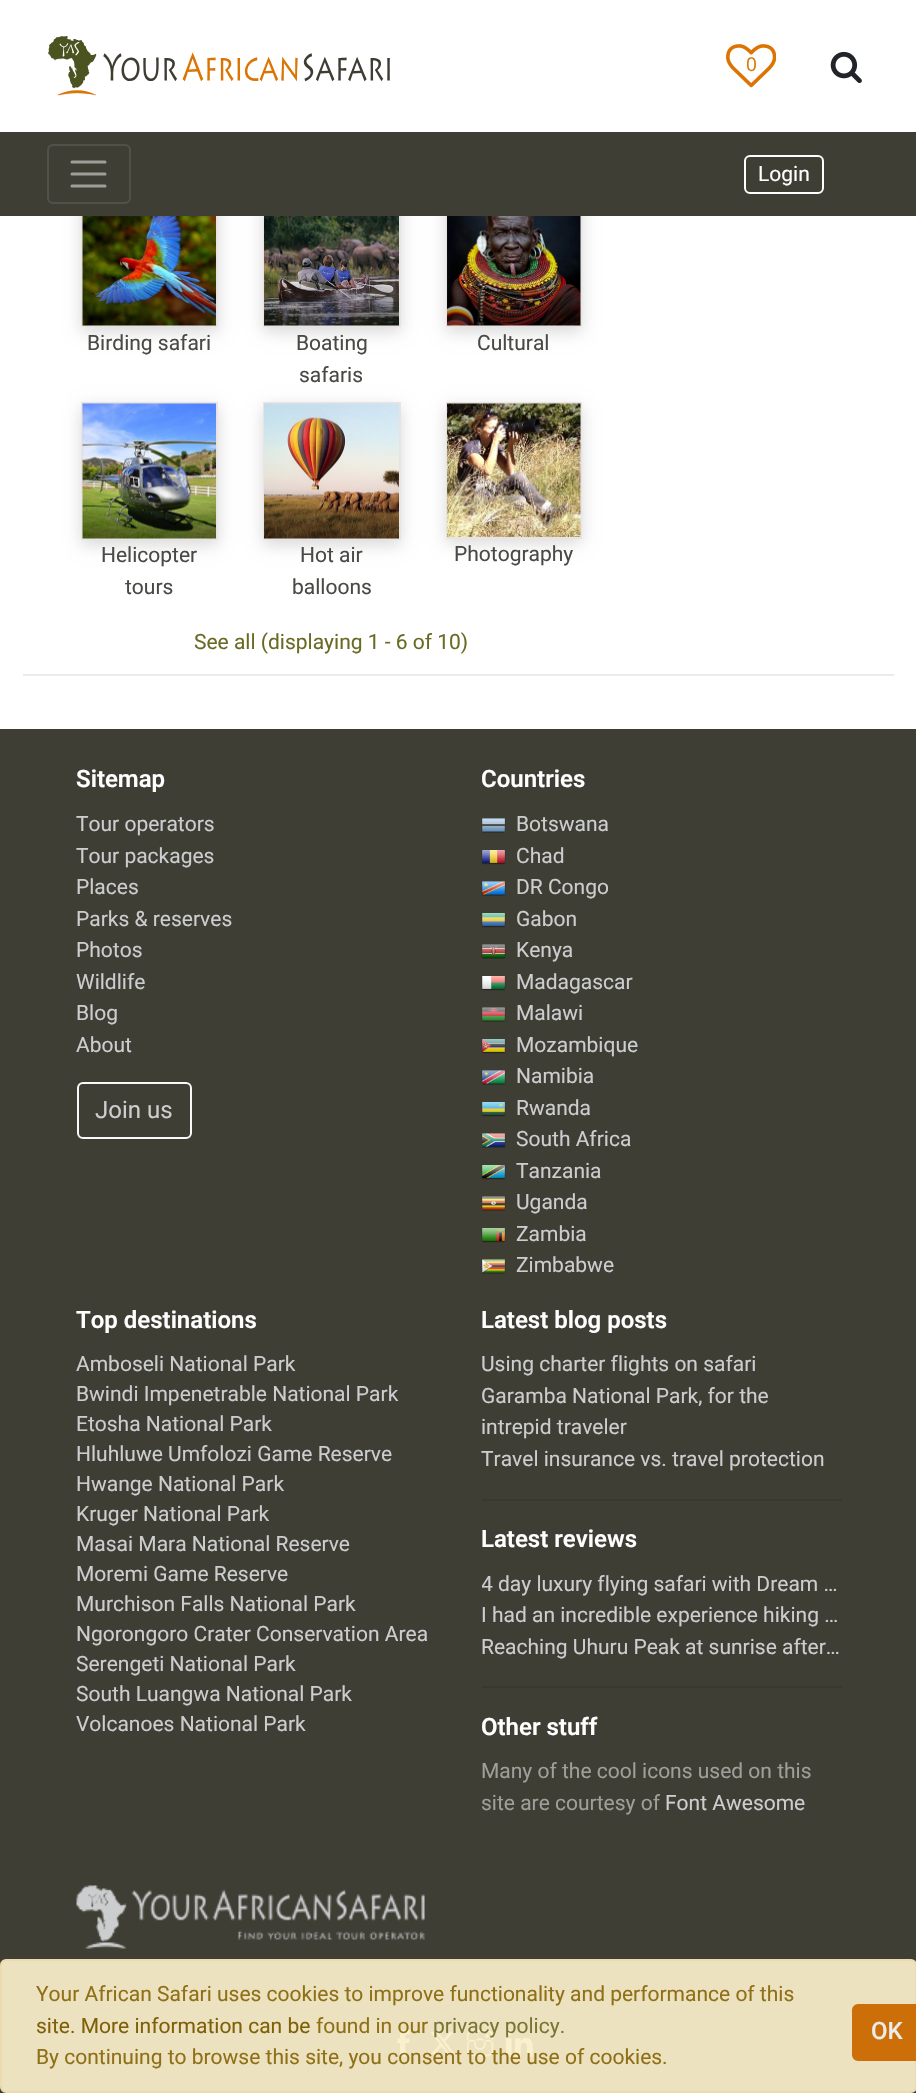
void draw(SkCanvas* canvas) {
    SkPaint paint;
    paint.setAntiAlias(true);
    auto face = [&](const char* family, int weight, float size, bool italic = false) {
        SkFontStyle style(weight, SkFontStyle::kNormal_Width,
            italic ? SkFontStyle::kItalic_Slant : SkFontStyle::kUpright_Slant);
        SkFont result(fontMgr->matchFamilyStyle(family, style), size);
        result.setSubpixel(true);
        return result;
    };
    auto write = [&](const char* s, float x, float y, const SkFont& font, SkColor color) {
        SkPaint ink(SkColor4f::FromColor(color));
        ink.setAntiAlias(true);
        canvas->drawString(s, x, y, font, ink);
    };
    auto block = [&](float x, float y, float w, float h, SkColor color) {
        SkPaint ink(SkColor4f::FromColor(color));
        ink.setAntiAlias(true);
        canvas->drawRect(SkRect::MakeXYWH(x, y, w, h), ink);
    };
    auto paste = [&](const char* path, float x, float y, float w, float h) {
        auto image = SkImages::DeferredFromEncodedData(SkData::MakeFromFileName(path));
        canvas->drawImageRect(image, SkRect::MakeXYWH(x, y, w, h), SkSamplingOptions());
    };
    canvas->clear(SK_ColorWHITE);
    paste("pic1.png", 48, 36, 342, 60);
    paste("pic2.png", 726, 44, 50, 44);
    auto kFont1 = face("Open Sans", 400, 19);
    write("0", 746, 71, kFont1, SkColorSetRGB(220, 116, 3));
    paste("pic3.png", 830, 51, 32, 32);
    paint.setColor(SkColorSetARGB(38, 0, 0, 0));
    paint.setMaskFilter(SkMaskFilter::MakeBlur(kNormal_SkBlurStyle, 7.5f));
    canvas->drawRect(SkRect::MakeXYWH(81, 195, 137, 137), paint);
    paint.setMaskFilter(nullptr);
    paint.setStyle(SkPaint::kStroke_Style);
    paint.setStrokeWidth(2);
    paint.setColor(SkColorSetRGB(233, 227, 225));
    canvas->drawRect(SkRect::MakeXYWH(82, 192, 135, 134), paint);
    paint.setStyle(SkPaint::kFill_Style);
    paint.setColor(SkColorSetARGB(38, 0, 0, 0));
    paint.setMaskFilter(SkMaskFilter::MakeBlur(kNormal_SkBlurStyle, 7.5f));
    canvas->drawRect(SkRect::MakeXYWH(263, 195, 138, 137), paint);
    paint.setMaskFilter(nullptr);
    paint.setStyle(SkPaint::kStroke_Style);
    paint.setColor(SkColorSetRGB(233, 227, 225));
    canvas->drawRect(SkRect::MakeXYWH(264, 192, 136, 134), paint);
    paint.setStyle(SkPaint::kFill_Style);
    paint.setColor(SkColorSetARGB(38, 0, 0, 0));
    paint.setMaskFilter(SkMaskFilter::MakeBlur(kNormal_SkBlurStyle, 7.5f));
    canvas->drawRect(SkRect::MakeXYWH(446, 195, 136, 137), paint);
    paint.setMaskFilter(nullptr);
    paint.setStyle(SkPaint::kStroke_Style);
    paint.setColor(SkColorSetRGB(233, 227, 225));
    canvas->drawRect(SkRect::MakeXYWH(447, 192, 134, 134), paint);
    block(0, 132, 916, 84, SkColorSetRGB(62, 62, 53));
    paint.setColor(SkColorSetRGB(81, 81, 73));
    canvas->drawRoundRect(SkRect::MakeXYWH(48, 145, 82, 58), 5, 5, paint);
    paint.setStrokeWidth(3);
    paint.setStrokeCap(SkPaint::kRound_Cap);
    paint.setColor(SkColorSetRGB(159, 159, 154));
    canvas->drawPath(SkPathBuilder().moveTo(72, 162).lineTo(105, 162).moveTo(72, 174).lineTo(105, 174).moveTo(72, 186).lineTo(105, 186).detach(), paint);
    paint.setStrokeWidth(2);
    paint.setStrokeCap(SkPaint::kButt_Cap);
    paint.setColor(SK_ColorWHITE);
    canvas->drawRoundRect(SkRect::MakeXYWH(745, 156, 78, 37), 5, 5, paint);
    auto kFont2 = face("Roboto", 400, 21);
    write("Login", 758, 181, kFont2, SK_ColorWHITE);
    paste("pic4.png", 82, 216, 134, 110);
    write("Birding safari", 87, 350, kFont2, SkColorSetRGB(73, 73, 70));
    paste("pic5.png", 264, 216, 135, 110);
    write("Boating", 296, 350, kFont2, SkColorSetRGB(73, 73, 70));
    write("safaris", 299, 382, kFont2, SkColorSetRGB(73, 73, 70));
    paste("pic6.png", 447, 216, 134, 110);
    write("Cultural", 477, 350, kFont2, SkColorSetRGB(73, 73, 70));
    paint.setStyle(SkPaint::kFill_Style);
    paint.setColor(SkColorSetARGB(38, 0, 0, 0));
    paint.setMaskFilter(SkMaskFilter::MakeBlur(kNormal_SkBlurStyle, 7.5f));
    canvas->drawRect(SkRect::MakeXYWH(81, 407, 137, 138), paint);
    paint.setMaskFilter(nullptr);
    paint.setStyle(SkPaint::kStroke_Style);
    paint.setColor(SkColorSetRGB(233, 227, 225));
    canvas->drawRect(SkRect::MakeXYWH(82, 403, 135, 136), paint);
    paste("pic7.png", 82, 403, 134, 136);
    write("Helicopter", 101, 562, kFont2, SkColorSetRGB(73, 73, 70));
    write("tours", 125, 594, kFont2, SkColorSetRGB(73, 73, 70));
    paint.setStyle(SkPaint::kFill_Style);
    paint.setColor(SkColorSetARGB(38, 0, 0, 0));
    paint.setMaskFilter(SkMaskFilter::MakeBlur(kNormal_SkBlurStyle, 7.5f));
    canvas->drawRect(SkRect::MakeXYWH(263, 407, 138, 138), paint);
    paint.setMaskFilter(nullptr);
    paint.setStyle(SkPaint::kStroke_Style);
    paint.setColor(SkColorSetRGB(233, 227, 225));
    canvas->drawRect(SkRect::MakeXYWH(264, 403, 136, 136), paint);
    paste("pic8.png", 264, 403, 135, 136);
    write("Hot air", 300, 562, kFont2, SkColorSetRGB(73, 73, 70));
    write("balloons", 292, 594, kFont2, SkColorSetRGB(73, 73, 70));
    paint.setStyle(SkPaint::kFill_Style);
    paint.setColor(SkColorSetARGB(38, 0, 0, 0));
    paint.setMaskFilter(SkMaskFilter::MakeBlur(kNormal_SkBlurStyle, 7.5f));
    canvas->drawRect(SkRect::MakeXYWH(446, 407, 136, 136), paint);
    paint.setMaskFilter(nullptr);
    paint.setStyle(SkPaint::kStroke_Style);
    paint.setColor(SkColorSetRGB(233, 227, 225));
    canvas->drawRect(SkRect::MakeXYWH(447, 403, 134, 135), paint);
    paste("pic9.png", 447, 403, 134, 134);
    write("Photography", 454, 561, kFont2, SkColorSetRGB(73, 73, 70));
    write("See all (displaying 1 - 6 of 10)", 194, 649, kFont2, SkColorSetRGB(107, 106, 36));
    block(23, 674, 871, 2, SkColorSetRGB(233, 236, 239));
    block(0, 729, 916, 1364, SkColorSetRGB(62, 62, 53));
    auto kFont3 = face("Roboto", 600, 24);
    write("Sitemap", 76, 787, kFont3, SK_ColorWHITE);
    write("Tour operators", 76, 831, kFont2, SkColorSetRGB(204, 205, 206));
    write("Tour packages", 76, 863, kFont2, SkColorSetRGB(204, 205, 206));
    write("Places", 76, 894, kFont2, SkColorSetRGB(204, 205, 206));
    write("Parks & reserves", 76, 926, kFont2, SkColorSetRGB(204, 205, 206));
    write("Photos", 76, 957, kFont2, SkColorSetRGB(204, 205, 206));
    write("Wildlife", 76, 989, kFont2, SkColorSetRGB(204, 205, 206));
    write("Blog", 76, 1020, kFont2, SkColorSetRGB(204, 205, 206));
    write("About", 76, 1052, kFont2, SkColorSetRGB(204, 205, 206));
    paint.setColor(SkColorSetRGB(248, 249, 250));
    canvas->drawRoundRect(SkRect::MakeXYWH(78, 1083, 113, 55), 5, 5, paint);
    auto kFont4 = face("Roboto", 400, 24);
    write("Join us", 95, 1118, kFont4, SkColorSetRGB(204, 205, 206));
    write("Countries", 481, 787, kFont3, SK_ColorWHITE);
    paste("pic10.png", 481, 818, 25, 15);
    write("Botswana", 516, 831, kFont2, SkColorSetRGB(204, 205, 206));
    paste("pic11.png", 481, 850, 25, 15);
    write("Chad", 516, 863, kFont2, SkColorSetRGB(204, 205, 206));
    paste("pic12.png", 481, 881, 25, 15);
    write("DR Congo", 516, 894, kFont2, SkColorSetRGB(204, 205, 206));
    paste("pic13.png", 481, 913, 25, 15);
    write("Gabon", 516, 926, kFont2, SkColorSetRGB(204, 205, 206));
    paste("pic14.png", 481, 944, 25, 15);
    write("Kenya", 516, 957, kFont2, SkColorSetRGB(204, 205, 206));
    paste("pic15.png", 481, 976, 25, 15);
    write("Madagascar", 516, 989, kFont2, SkColorSetRGB(204, 205, 206));
    paste("pic16.png", 481, 1007, 25, 15);
    write("Malawi", 516, 1020, kFont2, SkColorSetRGB(204, 205, 206));
    paste("pic17.png", 481, 1039, 25, 15);
    write("Mozambique", 516, 1052, kFont2, SkColorSetRGB(204, 205, 206));
    paste("pic18.png", 481, 1070, 25, 15);
    write("Namibia", 516, 1083, kFont2, SkColorSetRGB(204, 205, 206));
    paste("pic19.png", 481, 1102, 25, 15);
    write("Rwanda", 516, 1115, kFont2, SkColorSetRGB(204, 205, 206));
    paste("pic20.png", 481, 1133, 25, 15);
    write("South Africa", 516, 1146, kFont2, SkColorSetRGB(204, 205, 206));
    paste("pic21.png", 481, 1165, 25, 15);
    write("Tanzania", 516, 1178, kFont2, SkColorSetRGB(204, 205, 206));
    paste("pic22.png", 481, 1196, 25, 15);
    write("Uganda", 516, 1209, kFont2, SkColorSetRGB(204, 205, 206));
    paste("pic23.png", 481, 1228, 25, 15);
    write("Zambia", 516, 1241, kFont2, SkColorSetRGB(204, 205, 206));
    paste("pic24.png", 481, 1259, 25, 15);
    write("Zimbabwe", 516, 1272, kFont2, SkColorSetRGB(204, 205, 206));
    write("Top destinations", 76, 1328, kFont3, SK_ColorWHITE);
    write("Amboseli National Park", 76, 1371, kFont2, SkColorSetRGB(204, 205, 206));
    write("Bwindi Impenetrable National Park", 76, 1401, kFont2, SkColorSetRGB(204, 205, 206));
    write("Etosha National Park", 76, 1431, kFont2, SkColorSetRGB(204, 205, 206));
    write("Hluhluwe Umfolozi Game Reserve", 76, 1461, kFont2, SkColorSetRGB(204, 205, 206));
    write("Hwange National Park", 76, 1491, kFont2, SkColorSetRGB(204, 205, 206));
    write("Kruger National Park", 76, 1521, kFont2, SkColorSetRGB(204, 205, 206));
    write("Masai Mara National Reserve", 76, 1551, kFont2, SkColorSetRGB(204, 205, 206));
    write("Moremi Game Reserve", 76, 1581, kFont2, SkColorSetRGB(204, 205, 206));
    write("Murchison Falls National Park", 76, 1611, kFont2, SkColorSetRGB(204, 205, 206));
    write("Ngorongoro Crater Conservation Area", 76, 1641, kFont2, SkColorSetRGB(204, 205, 206));
    write("Serengeti National Park", 76, 1671, kFont2, SkColorSetRGB(204, 205, 206));
    write("South Luangwa National Park", 76, 1701, kFont2, SkColorSetRGB(204, 205, 206));
    write("Volcanoes National Park", 76, 1731, kFont2, SkColorSetRGB(204, 205, 206));
    write("Latest blog posts", 481, 1328, kFont3, SK_ColorWHITE);
    write("Using charter flights on safari", 481, 1371, kFont2, SkColorSetRGB(204, 205, 206));
    write("Garamba National Park, for the", 481, 1403, kFont2, SkColorSetRGB(204, 205, 206));
    write("intrepid traveler", 481, 1434, kFont2, SkColorSetRGB(204, 205, 206));
    write("Travel insurance vs. travel protection", 481, 1466, kFont2, SkColorSetRGB(204, 205, 206));
    block(482, 1499, 360, 2, SkColorSetRGB(56, 56, 48));
    write("Latest reviews", 481, 1547, kFont3, SK_ColorWHITE);
    canvas->save();
    canvas->clipRect(SkRect::MakeXYWH(482, 1568, 360, 31));
    write("4 day luxury flying safari with Dream …", 481, 1591, kFont2, SkColorSetRGB(204, 205, 206));
    canvas->restore();
    write("I had an incredible experience hiking …", 481, 1622, kFont2, SkColorSetRGB(204, 205, 206));
    write("Reaching Uhuru Peak at sunrise after…", 481, 1654, kFont2, SkColorSetRGB(204, 205, 206));
    block(482, 1686, 360, 2, SkColorSetRGB(56, 56, 48));
    write("Other stuff", 481, 1735, kFont3, SK_ColorWHITE);
    write("Many of the cool icons used on this", 481, 1778, kFont2, SkColorSetRGB(159, 159, 154));
    write("site are courtesy of", 481, 1810, kFont2, SkColorSetRGB(159, 159, 154));
    write("Font Awesome", 665, 1810, kFont2, SkColorSetRGB(204, 205, 206));
    paste("pic25.png", 76, 1885, 349, 64);
    paste("pic26.png", 397, 2030, 13, 27);
    paste("pic27.png", 430, 2032, 25, 23);
    paste("pic28.png", 467, 2030, 27, 27);
    paste("pic29.png", 506, 2030, 27, 27);
    paint.setStyle(SkPaint::kFill_Style);
    paint.setColor(SkColorSetARGB(230, 255, 243, 205));
    canvas->drawRoundRect(SkRect::MakeXYWH(1, 1960, 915, 132), 5, 5, paint);
    paint.setStyle(SkPaint::kStroke_Style);
    paint.setColor(SkColorSetRGB(236, 220, 173));
    canvas->drawRoundRect(SkRect::MakeXYWH(1, 1960, 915, 132), 5, 5, paint);
    write("Your African Safari uses cookies to improve functionality and performance of this", 36, 2001, kFont2, SkColorSetRGB(143, 112, 23));
    write("site. More information can be", 36, 2033, kFont2, SkColorSetRGB(126, 96, 9));
    write("found in our", 316, 2033, kFont2, SkColorSetRGB(143, 112, 23));
    write("privacy policy.", 433, 2033, kFont2, SkColorSetRGB(120, 118, 52));
    write("By continuing to browse this site, you consent to the use of cookies.", 36, 2064, kFont2, SkColorSetRGB(143, 112, 23));
    paint.setStyle(SkPaint::kFill_Style);
    paint.setColor(SkColorSetRGB(204, 111, 8));
    canvas->drawRoundRect(SkRect::MakeXYWH(853, 2005, 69, 55), 5, 5, paint);
    paint.setStyle(SkPaint::kStroke_Style);
    canvas->drawRoundRect(SkRect::MakeXYWH(853, 2005, 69, 55), 5, 5, paint);
    auto kFont5 = face("Roboto", 500, 24);
    write("OK", 871, 2039, kFont5, SkColorSetRGB(236, 236, 235));
}
